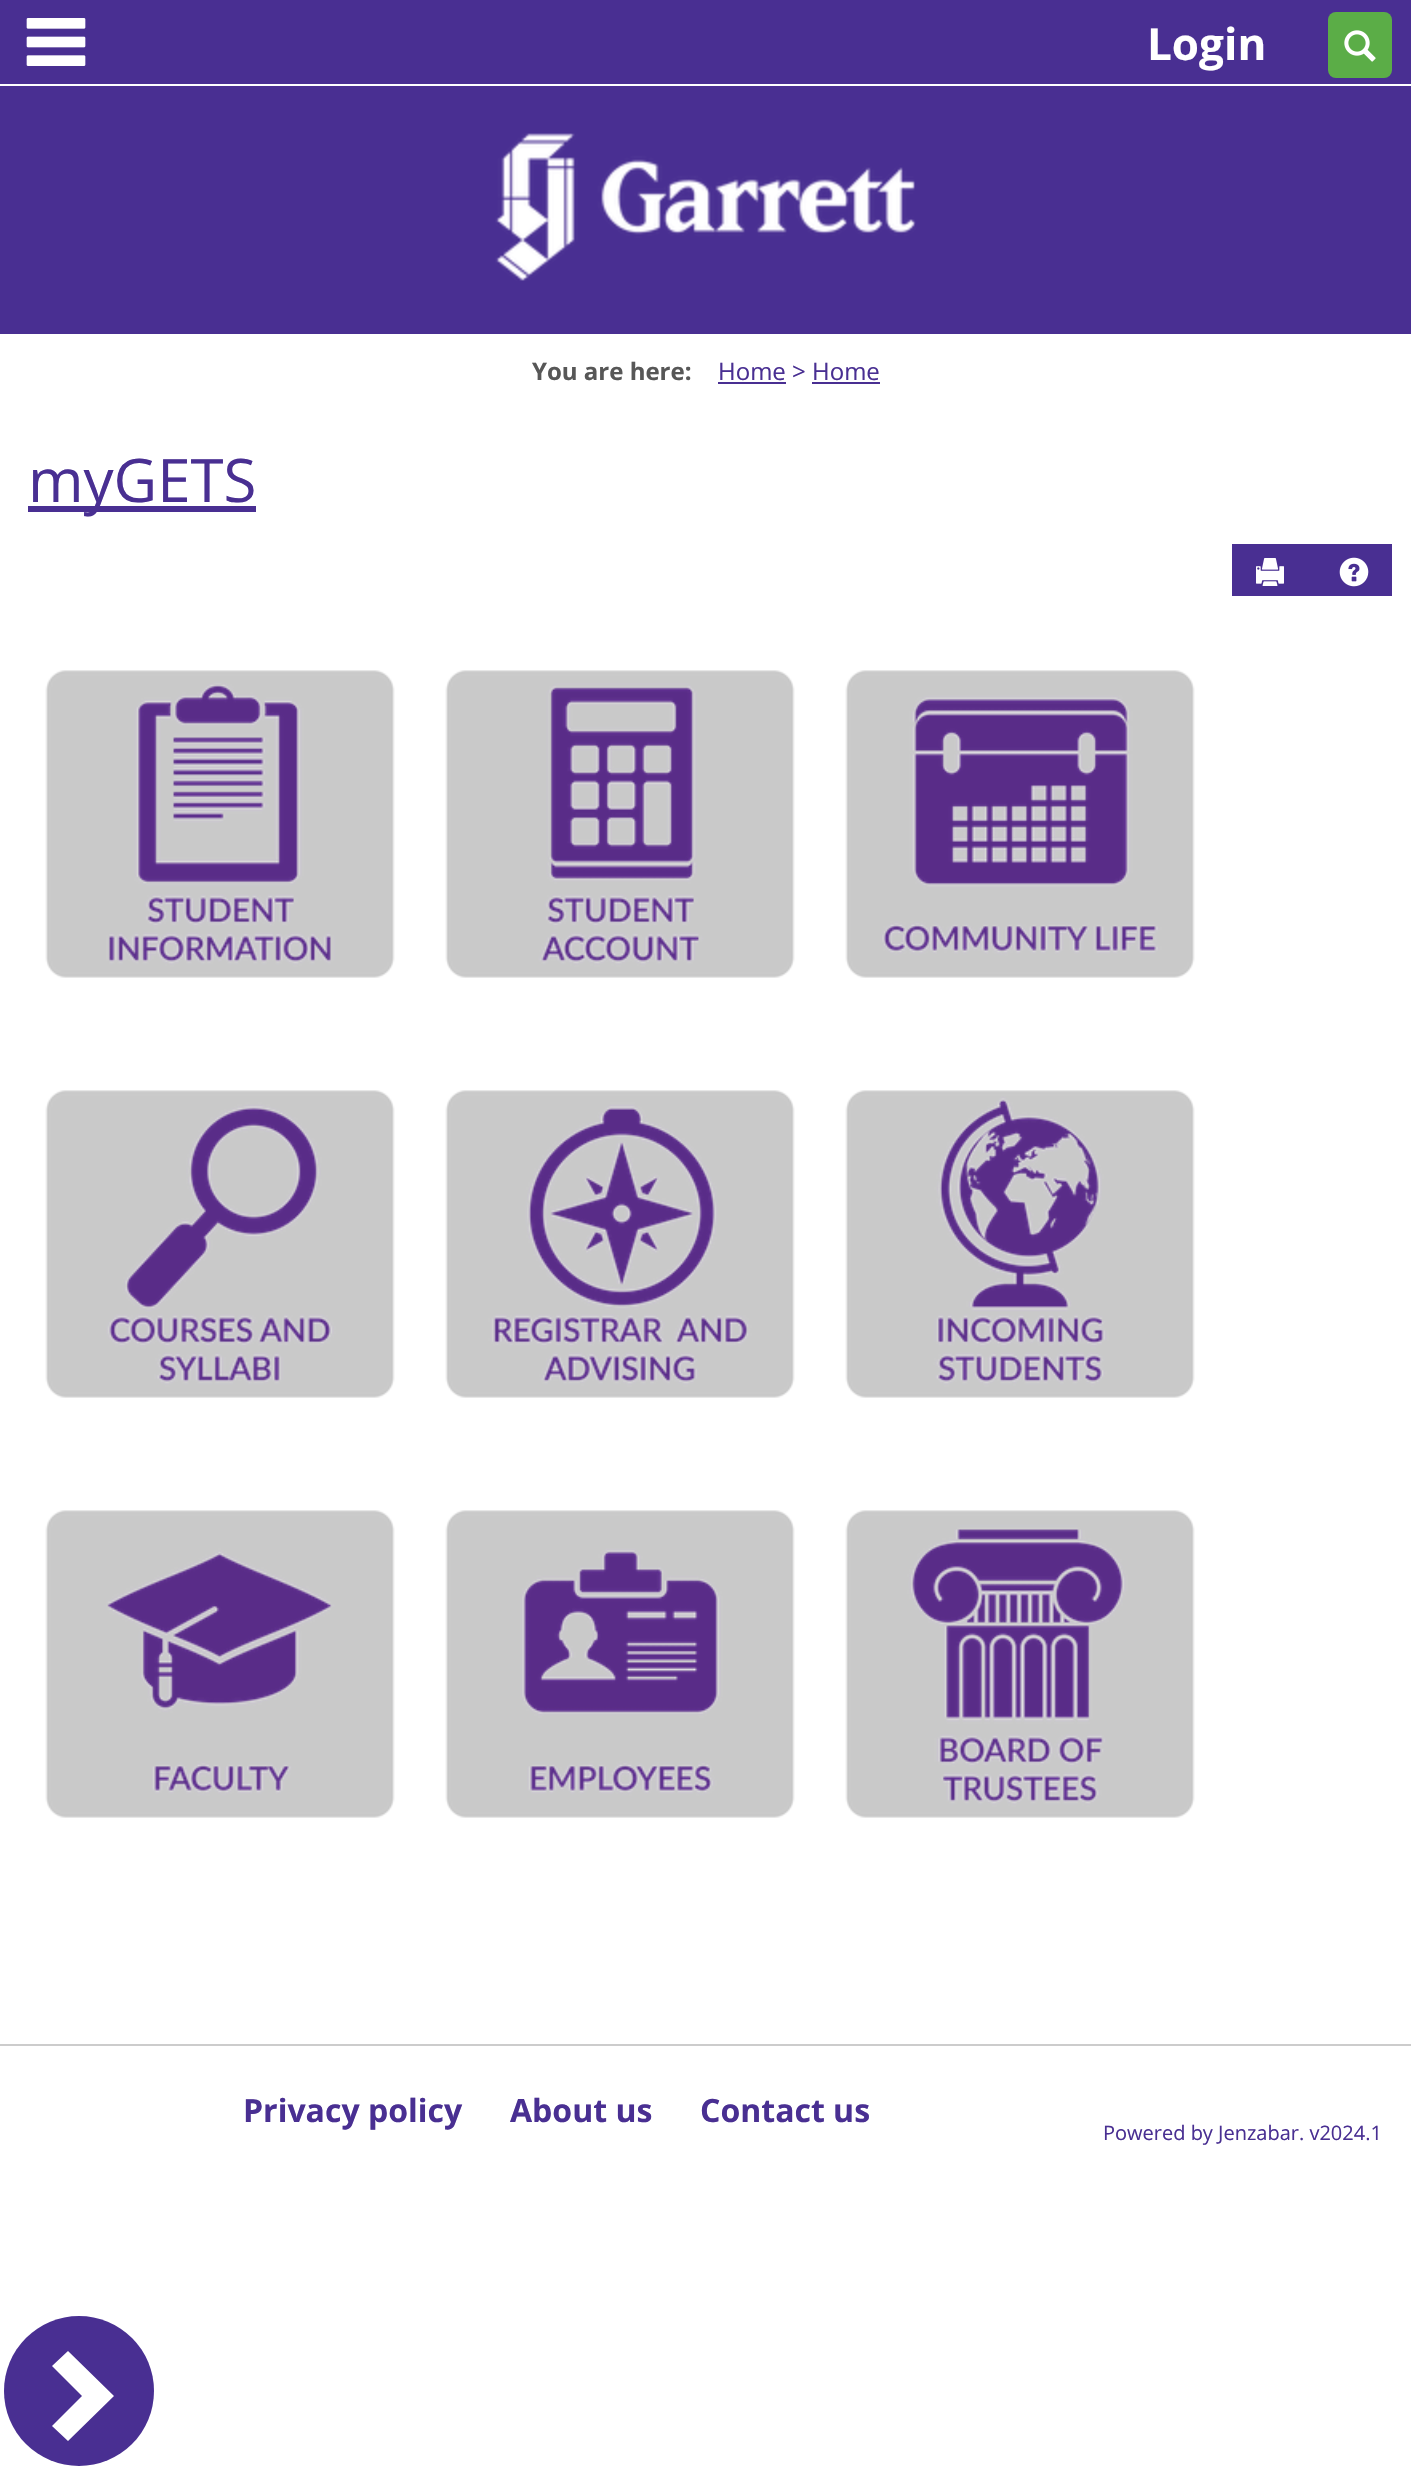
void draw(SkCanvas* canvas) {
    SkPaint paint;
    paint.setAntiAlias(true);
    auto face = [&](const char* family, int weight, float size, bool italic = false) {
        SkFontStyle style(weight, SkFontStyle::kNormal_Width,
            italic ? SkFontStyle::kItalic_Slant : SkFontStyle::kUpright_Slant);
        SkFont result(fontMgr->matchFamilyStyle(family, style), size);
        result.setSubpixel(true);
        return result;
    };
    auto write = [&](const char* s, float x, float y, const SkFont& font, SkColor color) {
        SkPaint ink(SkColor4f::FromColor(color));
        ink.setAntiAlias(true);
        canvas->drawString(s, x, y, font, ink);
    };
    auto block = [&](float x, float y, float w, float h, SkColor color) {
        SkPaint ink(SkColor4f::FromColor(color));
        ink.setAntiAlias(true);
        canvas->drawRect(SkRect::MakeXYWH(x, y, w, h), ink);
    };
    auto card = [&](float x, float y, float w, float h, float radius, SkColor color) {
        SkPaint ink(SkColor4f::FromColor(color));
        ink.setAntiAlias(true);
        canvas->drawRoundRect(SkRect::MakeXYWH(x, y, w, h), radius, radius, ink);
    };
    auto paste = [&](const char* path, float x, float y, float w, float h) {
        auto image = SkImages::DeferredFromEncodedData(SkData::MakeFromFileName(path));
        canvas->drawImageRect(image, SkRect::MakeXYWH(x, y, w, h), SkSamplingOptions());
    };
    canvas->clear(SK_ColorWHITE);
    block(0, 0, 1411, 84, SkColorSetRGB(73, 47, 146));
    block(0, 86, 1411, 248, SkColorSetRGB(73, 47, 146));
    paste("pic1.png", 26, 18, 60, 48);
    auto kFont1 = face("Open Sans", 700, 44);
    write("Login", 1147, 60, kFont1, SK_ColorWHITE);
    card(1328, 12, 64, 66, 8, SkColorSetRGB(91, 173, 71));
    paste("pic2.png", 1344, 30, 32, 32);
    paste("pic3.png", 495, 133, 421, 148);
    auto kFont2 = face("Open Sans", 700, 24);
    write("You are here:", 532, 380, kFont2, SkColorSetRGB(87, 87, 87));
    auto kFont3 = face("Open Sans", 400, 24);
    write("Home > Home", 718, 380, kFont3, SkColorSetRGB(73, 47, 146));
    block(718, 382, 68, 2, SkColorSetRGB(73, 47, 146));
    block(812, 382, 68, 2, SkColorSetRGB(73, 47, 146));
    block(28, 506, 228, 6, SkColorSetRGB(73, 47, 146));
    auto kFont4 = face("Open Sans", 400, 60);
    write("myGETS", 28, 502, kFont4, SkColorSetRGB(73, 47, 146));
    block(1232, 544, 160, 52, SkColorSetRGB(73, 47, 146));
    paste("pic4.png", 1256, 558, 28, 28);
    paste("pic5.png", 1339, 557, 30, 30);
    paste("pic6.png", 45, 670, 350, 308);
    paste("pic7.png", 445, 670, 350, 308);
    paste("pic8.png", 845, 670, 350, 308);
    paste("pic9.png", 45, 1090, 350, 308);
    paste("pic10.png", 445, 1090, 350, 308);
    paste("pic11.png", 845, 1090, 350, 308);
    paste("pic12.png", 45, 1510, 350, 308);
    paste("pic13.png", 445, 1510, 350, 308);
    paste("pic14.png", 845, 1510, 350, 308);
    paint.setColor(SkColorSetRGB(73, 47, 146));
    canvas->drawCircle(79, 2391, 75, paint);
    paint.setColor(SK_ColorWHITE);
    canvas->drawPath(SkPathBuilder().moveTo(68, 2441).lineTo(52, 2426).lineTo(82, 2396).lineTo(52, 2366).lineTo(68, 2351).lineTo(114, 2396).close().detach(), paint);
    block(0, 2044, 1411, 2, SkColorSetRGB(204, 204, 204));
    auto kFont5 = face("Open Sans", 700, 32);
    write("Privacy policy", 243, 2122, kFont5, SkColorSetRGB(73, 47, 146));
    write("About us", 510, 2122, kFont5, SkColorSetRGB(73, 47, 146));
    write("Contact us", 700, 2122, kFont5, SkColorSetRGB(73, 47, 146));
    auto kFont6 = face("Open Sans", 400, 20);
    write("Powered by Jenzabar. v2024.1", 1103, 2140, kFont6, SkColorSetRGB(73, 47, 146));
}
